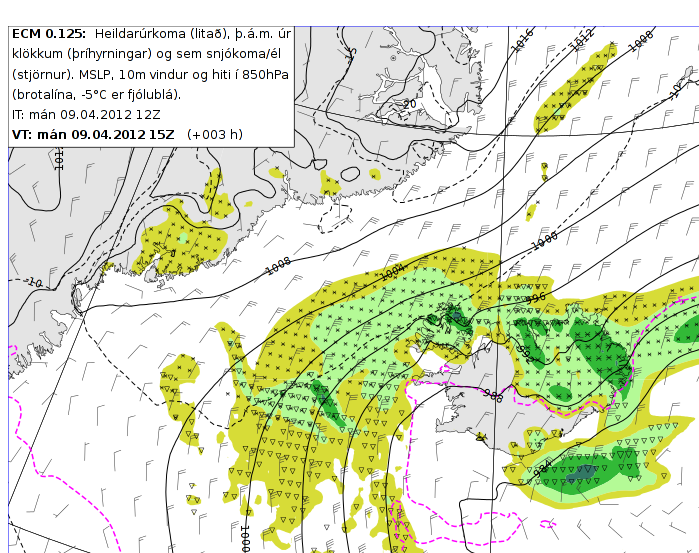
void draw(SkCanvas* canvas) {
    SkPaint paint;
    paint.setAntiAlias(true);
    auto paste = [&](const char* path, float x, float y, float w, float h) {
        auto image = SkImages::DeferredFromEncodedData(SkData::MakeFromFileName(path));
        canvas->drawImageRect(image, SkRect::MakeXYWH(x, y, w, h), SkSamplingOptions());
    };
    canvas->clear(SK_ColorWHITE);
    paste("pic1.png", 8, 26, 691, 527);
}
